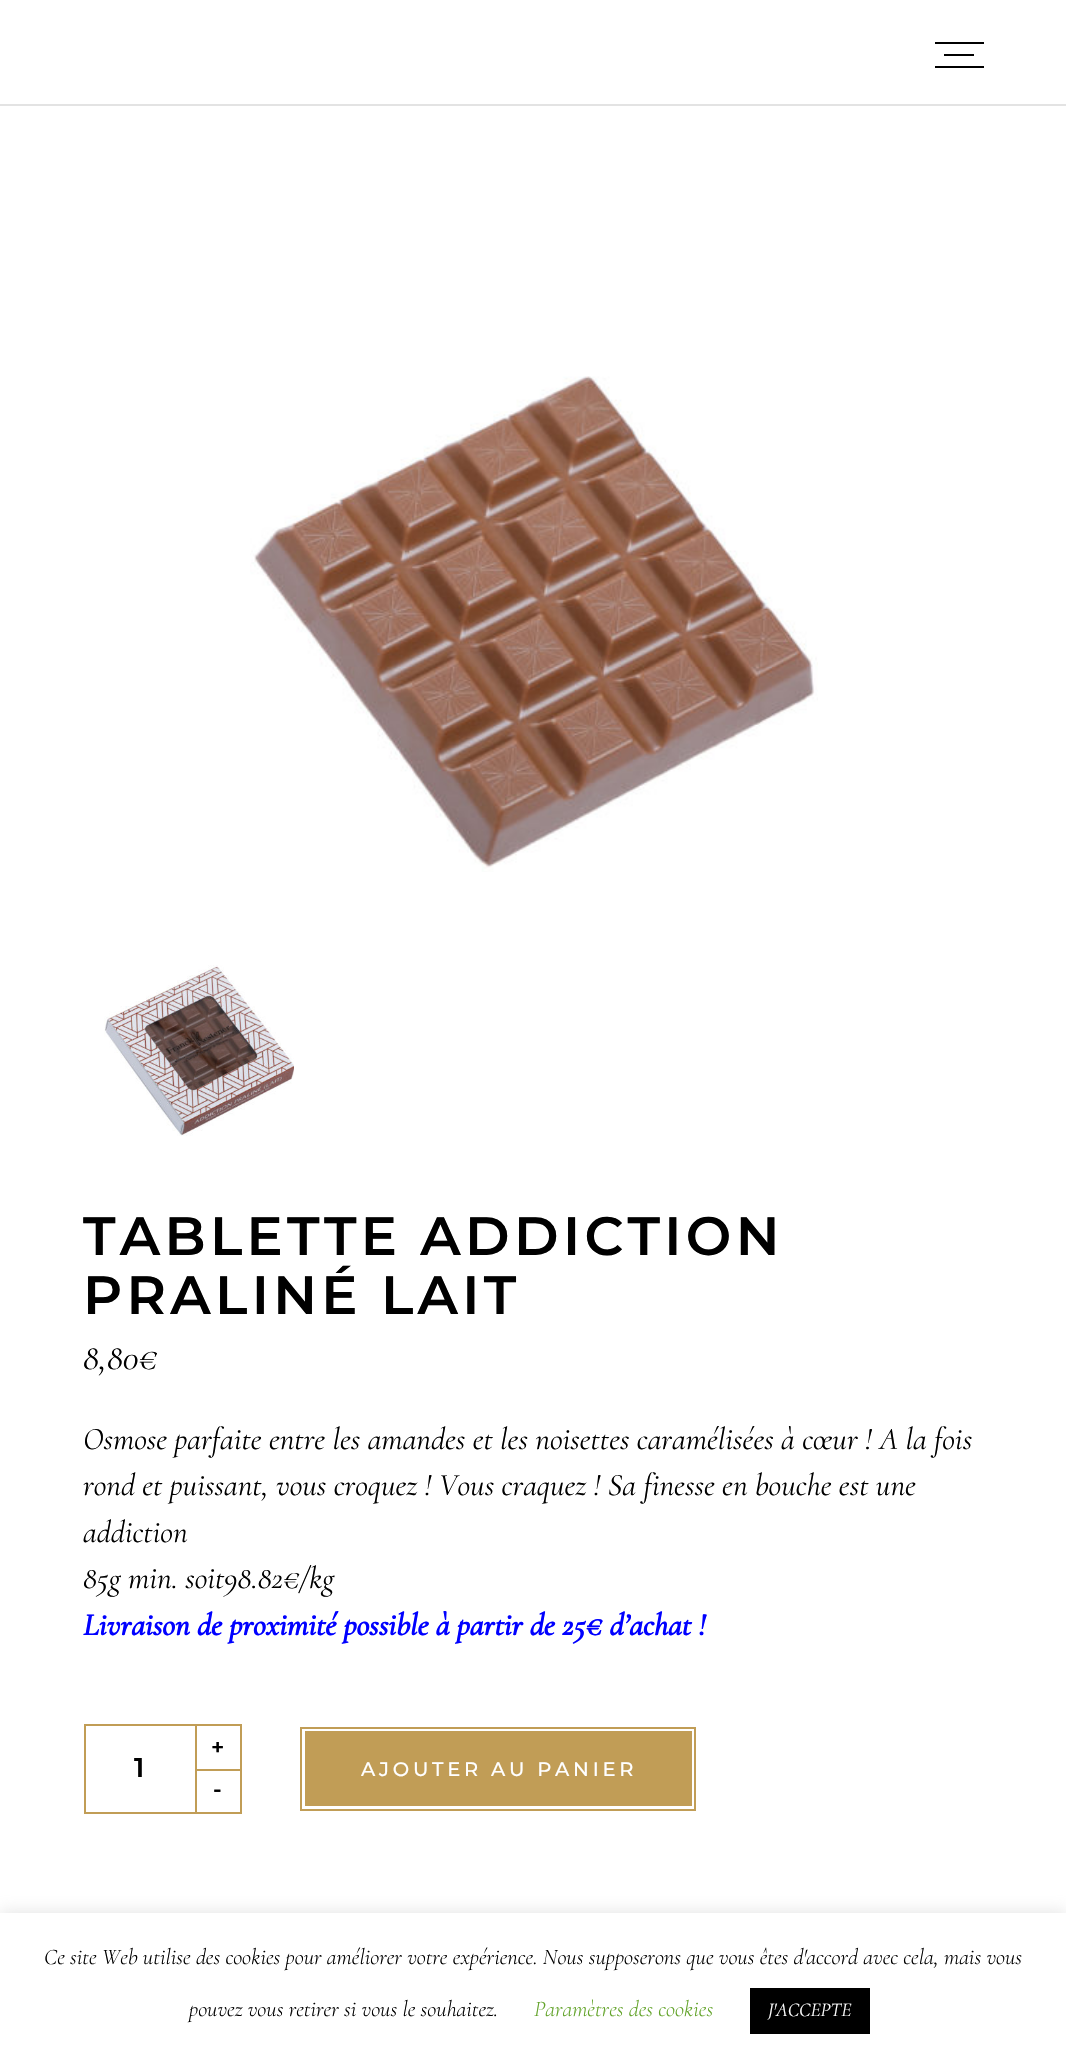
void draw(SkCanvas* canvas) {
    SkPaint paint;
    paint.setAntiAlias(true);
    auto face = [&](const char* family, int weight, float size, bool italic = false) {
        SkFontStyle style(weight, SkFontStyle::kNormal_Width,
            italic ? SkFontStyle::kItalic_Slant : SkFontStyle::kUpright_Slant);
        SkFont result(fontMgr->matchFamilyStyle(family, style), size);
        result.setSubpixel(true);
        return result;
    };
    auto write = [&](const char* s, float x, float y, const SkFont& font, SkColor color) {
        SkPaint ink(SkColor4f::FromColor(color));
        ink.setAntiAlias(true);
        canvas->drawString(s, x, y, font, ink);
    };
    auto writeSpaced = [&](const char* s, float x, float y, const SkFont& font, const SkPaint& ink, float letter, float word) {
        std::vector<SkGlyphID> glyphs(font.countText(s, strlen(s), SkTextEncoding::kUTF8));
        std::vector<float> xs(glyphs.size());
        font.textToGlyphs(s, strlen(s), SkTextEncoding::kUTF8, glyphs);
        font.getXPos(glyphs, xs, x);
        float extra = 0;
        for (size_t i = 0; i < glyphs.size(); i++) {
            xs[i] += extra;
            extra += letter + word * (glyphs[i] == font.unicharToGlyph(' '));
        }
        canvas->drawTextBlob(SkTextBlob::MakeFromPosHGlyphs(glyphs, xs, y, font), 0, 0, ink);
    };
    auto block = [&](float x, float y, float w, float h, SkColor color) {
        SkPaint ink(SkColor4f::FromColor(color));
        ink.setAntiAlias(true);
        canvas->drawRect(SkRect::MakeXYWH(x, y, w, h), ink);
    };
    auto paste = [&](const char* path, float x, float y, float w, float h) {
        auto image = SkImages::DeferredFromEncodedData(SkData::MakeFromFileName(path));
        canvas->drawImageRect(image, SkRect::MakeXYWH(x, y, w, h), SkSamplingOptions());
    };
    canvas->clear(SK_ColorWHITE);
    block(0, 104, 1066, 2, SkColorSetRGB(227, 227, 227));
    block(935, 42, 49, 2, SK_ColorBLACK);
    block(935, 66, 49, 2, SK_ColorBLACK);
    block(944, 54, 30, 2, SK_ColorBLACK);
    paste("pic1.png", 250, 376, 568, 496);
    paste("pic2.png", 104, 965, 190, 171);
    auto kFont1 = face("Montserrat", 600, 54);
    paint.setColor(SK_ColorBLACK);
    writeSpaced("TABLETTE ADDICTION", 83, 1255, kFont1, paint, 4.3f, 0);
    writeSpaced("PRALINÉ LAIT", 83, 1314, kFont1, paint, 4.3f, 0);
    auto kFont2 = face("Cormorant", 400, 36, true);
    write("8,80€", 83, 1369, kFont2, SK_ColorBLACK);
    auto kFont3 = face("Cormorant", 400, 31.5f, true);
    write("Osmose parfaite entre les amandes et les noisettes caramélisées à cœur ! A la fois", 83, 1449, kFont3, SK_ColorBLACK);
    write("rond et puissant, vous croquez ! Vous craquez ! Sa finesse en bouche est une", 83, 1495, kFont3, SK_ColorBLACK);
    write("addiction", 83, 1542, kFont3, SK_ColorBLACK);
    write("85g min. soit98.82€/kg", 83, 1588, kFont3, SK_ColorBLACK);
    auto kFont4 = face("Cormorant", 700, 31.5f, true);
    write("Livraison de proximité possible à partir de 25€ d’achat !", 83, 1635, kFont4, SkColorSetRGB(0, 0, 255));
    block(197, 1724, 45, 2, SkColorSetRGB(193, 157, 86));
    block(240, 1724, 2, 45, SkColorSetRGB(193, 157, 86));
    auto kFont5 = face("Montserrat", 600, 22.5f);
    write("+", 211, 1755, kFont5, SK_ColorBLACK);
    paint.setStyle(SkPaint::kStroke_Style);
    paint.setStrokeWidth(2);
    paint.setColor(SkColorSetRGB(193, 157, 86));
    canvas->drawRect(SkRect::MakeXYWH(85, 1725, 111, 88), paint);
    auto kFont6 = face("Montserrat", 600, 27);
    write("1", 134, 1777, kFont6, SK_ColorBLACK);
    block(197, 1769, 45, 2, SkColorSetRGB(193, 157, 86));
    block(240, 1769, 2, 45, SkColorSetRGB(193, 157, 86));
    block(197, 1812, 45, 2, SkColorSetRGB(193, 157, 86));
    write("-", 213, 1797, kFont5, SK_ColorBLACK);
    block(305, 1731, 387, 75, SkColorSetRGB(193, 157, 86));
    canvas->drawRect(SkRect::MakeXYWH(301, 1728, 394, 82), paint);
    auto kFont7 = face("Montserrat", 500, 19.5f);
    paint.setStyle(SkPaint::kFill_Style);
    paint.setColor(SK_ColorWHITE);
    writeSpaced("AJOUTER AU PANIER", 361, 1776, kFont7, paint, 3.75f, 0);
    paint.setColor(SkColorSetARGB(77, 172, 171, 171));
    paint.setMaskFilter(SkMaskFilter::MakeBlur(kNormal_SkBlurStyle, 7.5f));
    canvas->drawRect(SkRect::MakeXYWH(0, 1911, 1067, 147), paint);
    paint.setMaskFilter(nullptr);
    block(0, 1913, 1066, 146, SK_ColorWHITE);
    auto kFont8 = face("Cormorant", 300, 22.5f, true);
    write("Ce site Web utilise des cookies pour améliorer votre expérience. Nous supposerons que vous êtes d'accord avec cela, mais vous", 44, 1964, kFont8, SK_ColorBLACK);
    write("pouvez vous retirer si vous le souhaitez.", 189, 2016, kFont8, SK_ColorBLACK);
    write("Paramètres des cookies", 534, 2016, kFont8, SkColorSetRGB(98, 163, 41));
    block(750, 1988, 120, 46, SK_ColorBLACK);
    auto kFont9 = face("Cormorant", 400, 19.5f, true);
    write("J'ACCEPTE", 768, 2016, kFont9, SK_ColorWHITE);
}
